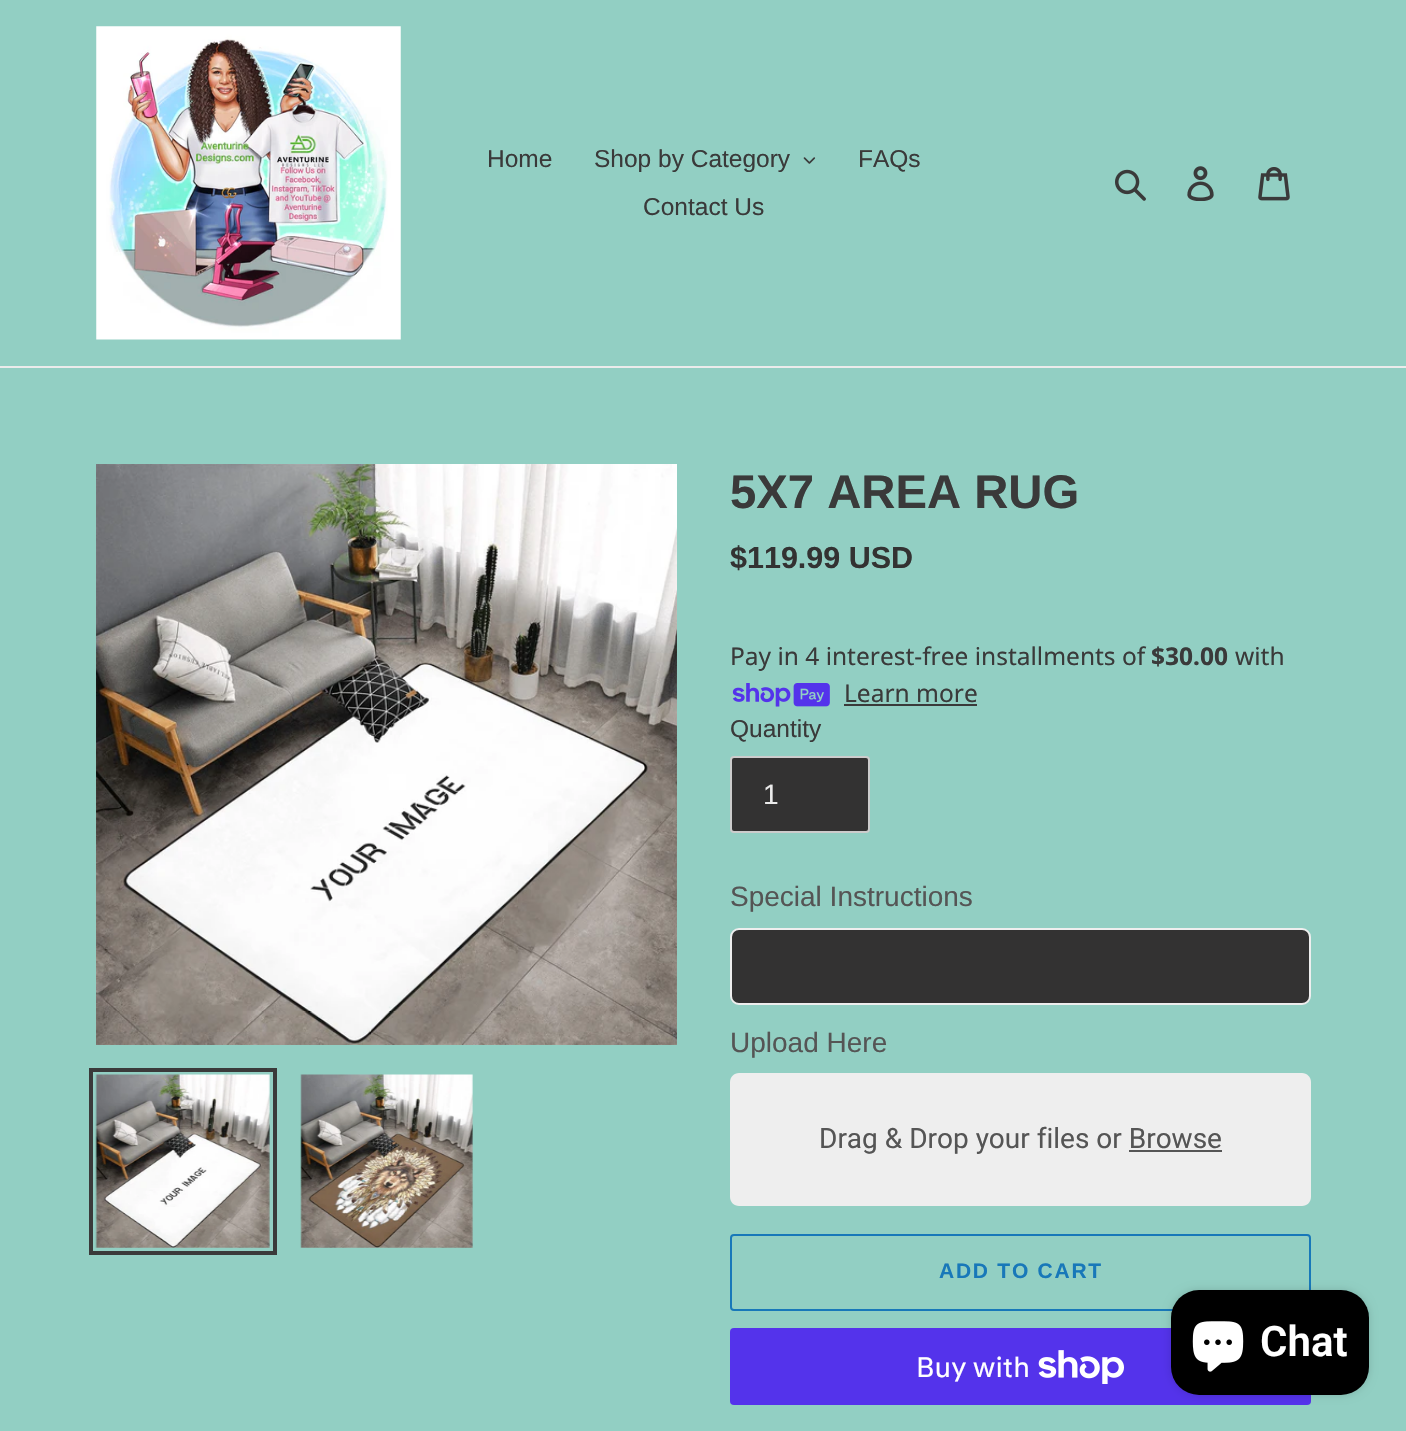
void draw(SkCanvas* canvas) {
    SkPaint paint;
    paint.setAntiAlias(true);
    auto face = [&](const char* family, int weight, float size, bool italic = false) {
        SkFontStyle style(weight, SkFontStyle::kNormal_Width,
            italic ? SkFontStyle::kItalic_Slant : SkFontStyle::kUpright_Slant);
        SkFont result(fontMgr->matchFamilyStyle(family, style), size);
        result.setSubpixel(true);
        return result;
    };
    auto write = [&](const char* s, float x, float y, const SkFont& font, SkColor color) {
        SkPaint ink(SkColor4f::FromColor(color));
        ink.setAntiAlias(true);
        canvas->drawString(s, x, y, font, ink);
    };
    auto writeSpaced = [&](const char* s, float x, float y, const SkFont& font, const SkPaint& ink, float letter, float word) {
        std::vector<SkGlyphID> glyphs(font.countText(s, strlen(s), SkTextEncoding::kUTF8));
        std::vector<float> xs(glyphs.size());
        font.textToGlyphs(s, strlen(s), SkTextEncoding::kUTF8, glyphs);
        font.getXPos(glyphs, xs, x);
        float extra = 0;
        for (size_t i = 0; i < glyphs.size(); i++) {
            xs[i] += extra;
            extra += letter + word * (glyphs[i] == font.unicharToGlyph(' '));
        }
        canvas->drawTextBlob(SkTextBlob::MakeFromPosHGlyphs(glyphs, xs, y, font), 0, 0, ink);
    };
    auto block = [&](float x, float y, float w, float h, SkColor color) {
        SkPaint ink(SkColor4f::FromColor(color));
        ink.setAntiAlias(true);
        canvas->drawRect(SkRect::MakeXYWH(x, y, w, h), ink);
    };
    auto card = [&](float x, float y, float w, float h, float radius, SkColor color) {
        SkPaint ink(SkColor4f::FromColor(color));
        ink.setAntiAlias(true);
        canvas->drawRoundRect(SkRect::MakeXYWH(x, y, w, h), radius, radius, ink);
    };
    auto paste = [&](const char* path, float x, float y, float w, float h) {
        auto image = SkImages::DeferredFromEncodedData(SkData::MakeFromFileName(path));
        canvas->drawImageRect(image, SkRect::MakeXYWH(x, y, w, h), SkSamplingOptions());
    };
    canvas->clear(SkColorSetRGB(146, 207, 195));
    block(0, 366, 1406, 2, SkColorSetRGB(235, 235, 235));
    paste("pic1.png", 96, 26, 305, 314);
    auto kFont1 = face("Liberation Sans", 400, 24.5f);
    write("Home", 487, 167, kFont1, SkColorSetRGB(58, 58, 58));
    write("Shop by Category", 594, 167, kFont1, SkColorSetRGB(58, 58, 58));
    paste("pic2.png", 803, 157, 13, 7);
    write("FAQs", 858, 167, kFont1, SkColorSetRGB(58, 58, 58));
    write("Contact Us", 643, 215, kFont1, SkColorSetRGB(58, 58, 58));
    paste("pic3.png", 1115, 169, 31, 32);
    paste("pic4.png", 1187, 166, 27, 35);
    paste("pic5.png", 1258, 167, 32, 34);
    paste("pic6.png", 96, 464, 581, 581);
    paint.setStyle(SkPaint::kStroke_Style);
    paint.setStrokeWidth(4);
    paint.setColor(SkColorSetRGB(58, 58, 58));
    canvas->drawRect(SkRect::MakeXYWH(91, 1070, 184, 183), paint);
    paste("pic7.png", 95, 1074, 175, 174);
    paste("pic8.png", 300, 1074, 173, 174);
    auto kFont2 = face("Liberation Sans", 700, 47.25f);
    write("5X7 AREA RUG", 730, 508, kFont2, SkColorSetRGB(58, 58, 58));
    auto kFont3 = face("Liberation Sans", 700, 30.5f);
    write("$119.99 USD", 730, 568, kFont3, SkColorSetRGB(51, 50, 50));
    auto kFont4 = face("Noto Sans", 400, 24.5f);
    write("Pay in 4 interest-free installments of", 730, 665, kFont4, SkColorSetRGB(58, 58, 58));
    auto kFont5 = face("Noto Sans", 700, 24.5f);
    write("$30.00", 1151, 665, kFont5, SkColorSetRGB(58, 58, 58));
    write("with", 1235, 665, kFont4, SkColorSetRGB(58, 58, 58));
    paste("pic9.png", 732, 683, 98, 24);
    write("Learn more", 844, 702, kFont4, SkColorSetRGB(58, 58, 58));
    block(844, 704, 133, 2, SkColorSetRGB(58, 58, 58));
    write("Quantity", 730, 737, kFont1, SkColorSetRGB(58, 58, 58));
    paint.setStyle(SkPaint::kFill_Style);
    paint.setColor(SkColorSetRGB(51, 50, 50));
    canvas->drawRoundRect(SkRect::MakeXYWH(731, 757, 138, 75), 3, 3, paint);
    paint.setStyle(SkPaint::kStroke_Style);
    paint.setStrokeWidth(2);
    paint.setColor(SkColorSetRGB(204, 204, 204));
    canvas->drawRoundRect(SkRect::MakeXYWH(731, 757, 138, 75), 3, 3, paint);
    auto kFont6 = face("Liberation Sans", 400, 28);
    write("1", 763, 804, kFont6, SkColorSetRGB(235, 235, 235));
    write("Special Instructions", 730, 906, kFont6, SkColorSetRGB(85, 85, 85));
    paint.setStyle(SkPaint::kFill_Style);
    paint.setColor(SkColorSetRGB(51, 50, 50));
    canvas->drawRoundRect(SkRect::MakeXYWH(731, 929, 579, 75), 8, 8, paint);
    paint.setStyle(SkPaint::kStroke_Style);
    paint.setColor(SkColorSetRGB(238, 238, 238));
    canvas->drawRoundRect(SkRect::MakeXYWH(731, 929, 579, 75), 8, 8, paint);
    write("Upload Here", 730, 1052, kFont6, SkColorSetRGB(85, 85, 85));
    paint.setStyle(SkPaint::kFill_Style);
    canvas->drawPath(SkPathBuilder().moveTo(739, 1073).lineTo(1302, 1073).cubicTo(1307, 1073, 1311, 1077, 1311, 1082).lineTo(1311, 1087).lineTo(730, 1087).lineTo(730, 1082).cubicTo(730, 1077, 734, 1073, 739, 1073).close().detach(), paint);
    block(730, 1087, 581, 105, SkColorSetRGB(238, 238, 238));
    canvas->drawPath(SkPathBuilder().moveTo(730, 1192).lineTo(1311, 1192).lineTo(1311, 1197).cubicTo(1311, 1202, 1307, 1206, 1302, 1206).lineTo(739, 1206).cubicTo(734, 1206, 730, 1202, 730, 1197).close().detach(), paint);
    auto kFont7 = face("Roboto", 400, 28);
    write("Drag & Drop your files or Browse", 819, 1148, kFont7, SkColorSetRGB(85, 85, 85));
    block(1129, 1150, 93, 2, SkColorSetRGB(85, 85, 85));
    paint.setStyle(SkPaint::kStroke_Style);
    paint.setColor(SkColorSetRGB(24, 120, 185));
    canvas->drawRoundRect(SkRect::MakeXYWH(731, 1235, 579, 75), 3, 3, paint);
    auto kFont8 = face("Liberation Sans", 700, 21);
    paint.setStyle(SkPaint::kFill_Style);
    writeSpaced("ADD TO CART", 939, 1278, kFont8, paint, 1.75f, 0);
    card(730, 1328, 581, 77, 4, SkColorSetRGB(84, 51, 235));
    auto kFont9 = face("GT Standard", 400, 28);
    write("Buy with", 916, 1377, kFont9, SK_ColorWHITE);
    paste("pic10.png", 1038, 1350, 86, 34);
    paint.setColor(SkColorSetARGB(38, 0, 0, 0));
    paint.setMaskFilter(SkMaskFilter::MakeBlur(kNormal_SkBlurStyle, 4.5f));
    canvas->drawRoundRect(SkRect::MakeXYWH(1171, 1290, 198, 105), 28, 28, paint);
    paint.setMaskFilter(nullptr);
    card(1171, 1290, 198, 105, 28, SK_ColorBLACK);
    paste("pic11.png", 1192, 1321, 52, 51);
    auto kFont10 = face("Roboto", 600, 42);
    write("Chat", 1260, 1356, kFont10, SK_ColorWHITE);
}
